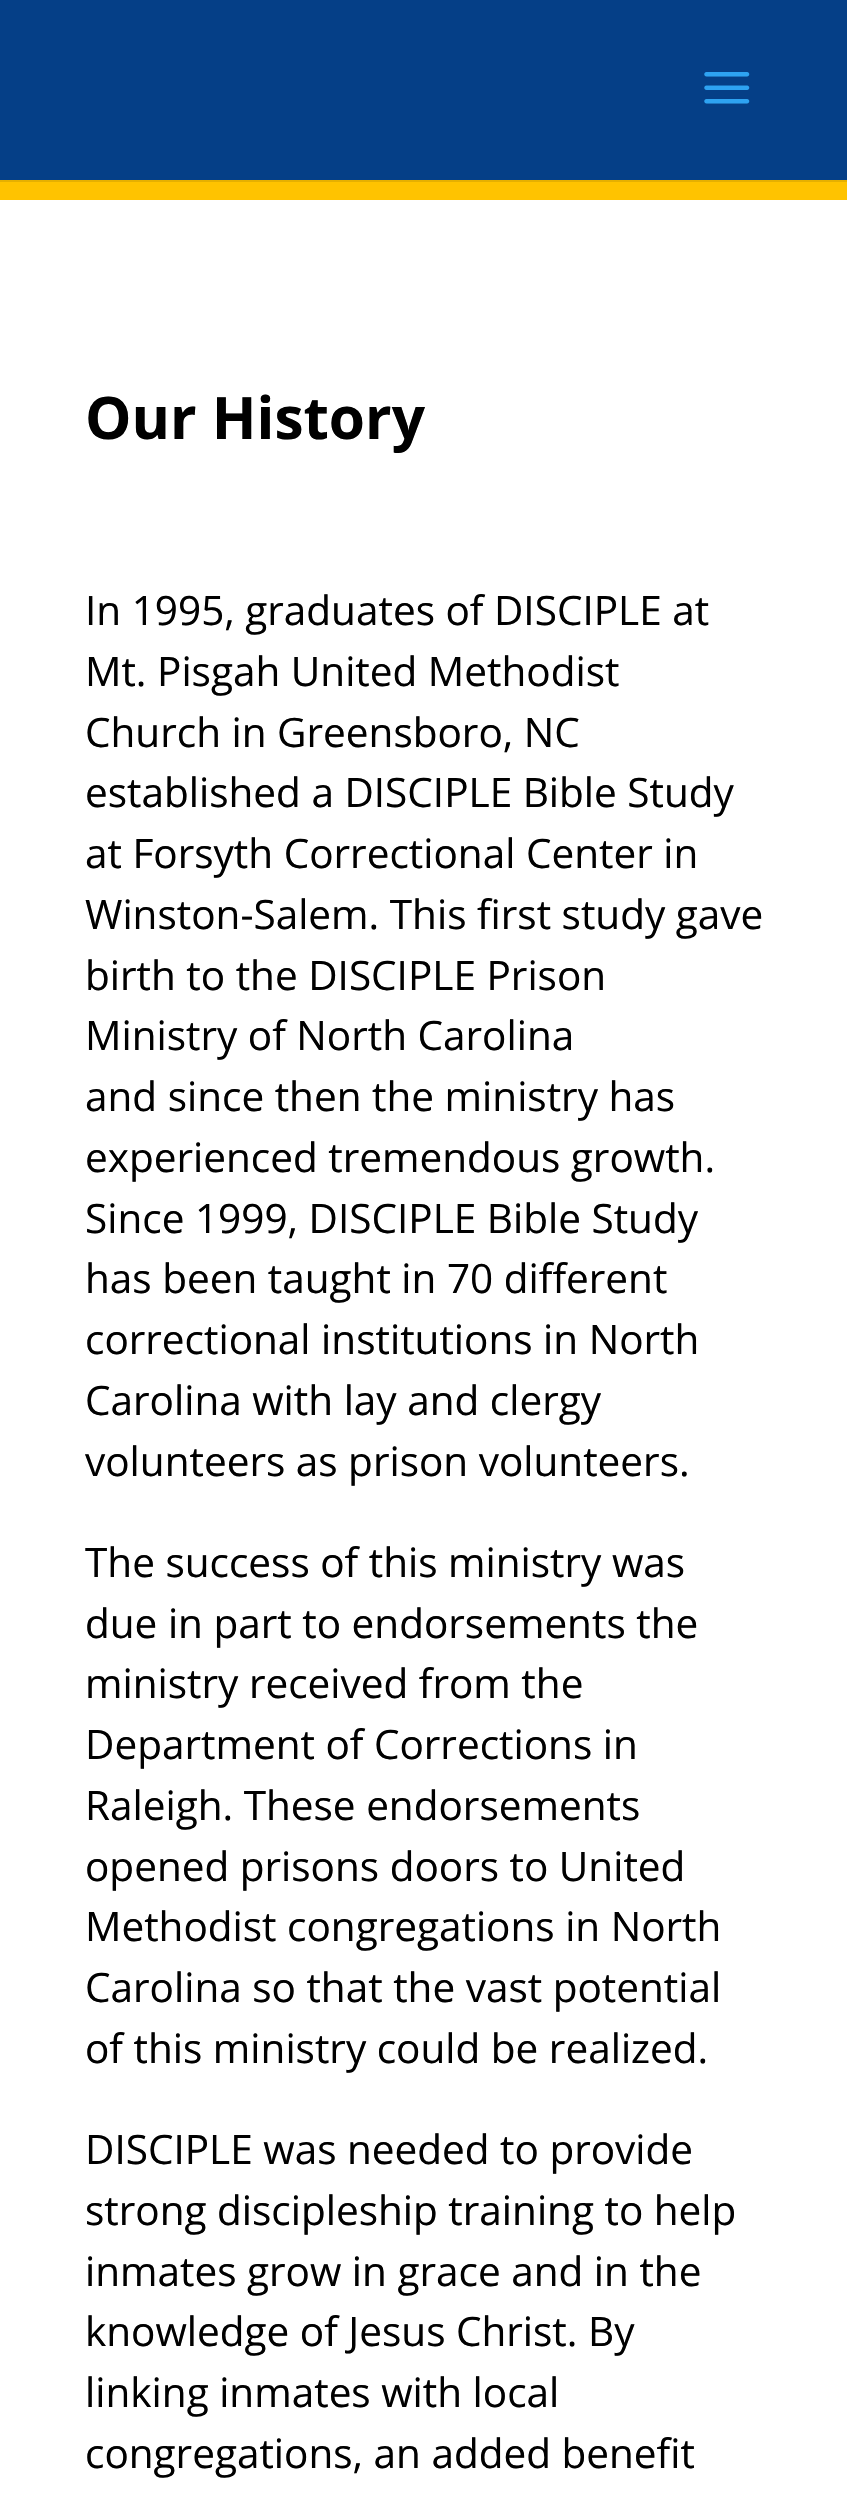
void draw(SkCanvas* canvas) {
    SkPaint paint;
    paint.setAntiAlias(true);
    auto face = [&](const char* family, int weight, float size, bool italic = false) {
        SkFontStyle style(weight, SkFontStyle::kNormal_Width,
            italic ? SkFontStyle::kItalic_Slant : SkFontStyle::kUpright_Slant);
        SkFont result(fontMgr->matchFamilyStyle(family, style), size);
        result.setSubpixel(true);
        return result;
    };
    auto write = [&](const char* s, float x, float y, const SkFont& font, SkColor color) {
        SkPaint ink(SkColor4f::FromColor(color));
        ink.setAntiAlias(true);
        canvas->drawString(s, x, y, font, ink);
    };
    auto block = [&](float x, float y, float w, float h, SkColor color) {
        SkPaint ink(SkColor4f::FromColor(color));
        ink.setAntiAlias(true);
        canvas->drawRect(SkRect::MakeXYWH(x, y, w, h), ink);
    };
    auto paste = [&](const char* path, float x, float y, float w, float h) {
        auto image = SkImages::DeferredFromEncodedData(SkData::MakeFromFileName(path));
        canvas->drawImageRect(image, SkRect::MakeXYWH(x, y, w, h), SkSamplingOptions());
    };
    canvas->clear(SK_ColorWHITE);
    block(0, 180, 847, 2, SkColorSetRGB(230, 176, 0));
    block(0, 0, 847, 180, SkColorSetRGB(5, 63, 135));
    paste("pic1.png", 704, 72, 46, 32);
    block(0, 182, 847, 18, SkColorSetRGB(255, 195, 0));
    auto kFont1 = face("Open Sans", 700, 58.5f);
    write("Our History", 85, 439, kFont1, SK_ColorBLACK);
    auto kFont2 = face("Open Sans", 400, 40.5f);
    write("In 1995, graduates of DISCIPLE at", 85, 625, kFont2, SK_ColorBLACK);
    write("Mt. Pisgah United Methodist", 85, 686, kFont2, SK_ColorBLACK);
    write("Church in Greensboro, NC", 85, 747, kFont2, SK_ColorBLACK);
    write("established a DISCIPLE Bible Study", 85, 807, kFont2, SK_ColorBLACK);
    write("at Forsyth Correctional Center in", 85, 868, kFont2, SK_ColorBLACK);
    write("Winston-Salem. This first study gave", 85, 929, kFont2, SK_ColorBLACK);
    write("birth to the DISCIPLE Prison", 85, 990, kFont2, SK_ColorBLACK);
    write("Ministry of North Carolina", 85, 1050, kFont2, SK_ColorBLACK);
    write("and since then the ministry has", 85, 1111, kFont2, SK_ColorBLACK);
    write("experienced tremendous growth.", 85, 1172, kFont2, SK_ColorBLACK);
    write("Since 1999, DISCIPLE Bible Study", 85, 1233, kFont2, SK_ColorBLACK);
    write("has been taught in 70 different", 85, 1293, kFont2, SK_ColorBLACK);
    write("correctional institutions in North", 85, 1354, kFont2, SK_ColorBLACK);
    write("Carolina with lay and clergy", 85, 1415, kFont2, SK_ColorBLACK);
    write("volunteers as prison volunteers.", 85, 1476, kFont2, SK_ColorBLACK);
    write("The success of this ministry was", 85, 1577, kFont2, SK_ColorBLACK);
    write("due in part to endorsements the", 85, 1638, kFont2, SK_ColorBLACK);
    write("ministry received from the", 85, 1698, kFont2, SK_ColorBLACK);
    write("Department of Corrections in", 85, 1759, kFont2, SK_ColorBLACK);
    write("Raleigh. These endorsements", 85, 1820, kFont2, SK_ColorBLACK);
    write("opened prisons doors to United", 85, 1881, kFont2, SK_ColorBLACK);
    write("Methodist congregations in North", 85, 1941, kFont2, SK_ColorBLACK);
    write("Carolina so that the vast potential", 85, 2002, kFont2, SK_ColorBLACK);
    write("of this ministry could be realized.", 85, 2063, kFont2, SK_ColorBLACK);
    write("DISCIPLE was needed to provide", 85, 2164, kFont2, SK_ColorBLACK);
    write("strong discipleship training to help", 85, 2225, kFont2, SK_ColorBLACK);
    write("inmates grow in grace and in the", 85, 2286, kFont2, SK_ColorBLACK);
    write("knowledge of Jesus Christ. By", 85, 2346, kFont2, SK_ColorBLACK);
    write("linking inmates with local", 85, 2407, kFont2, SK_ColorBLACK);
    write("congregations, an added benefit", 85, 2468, kFont2, SK_ColorBLACK);
}
